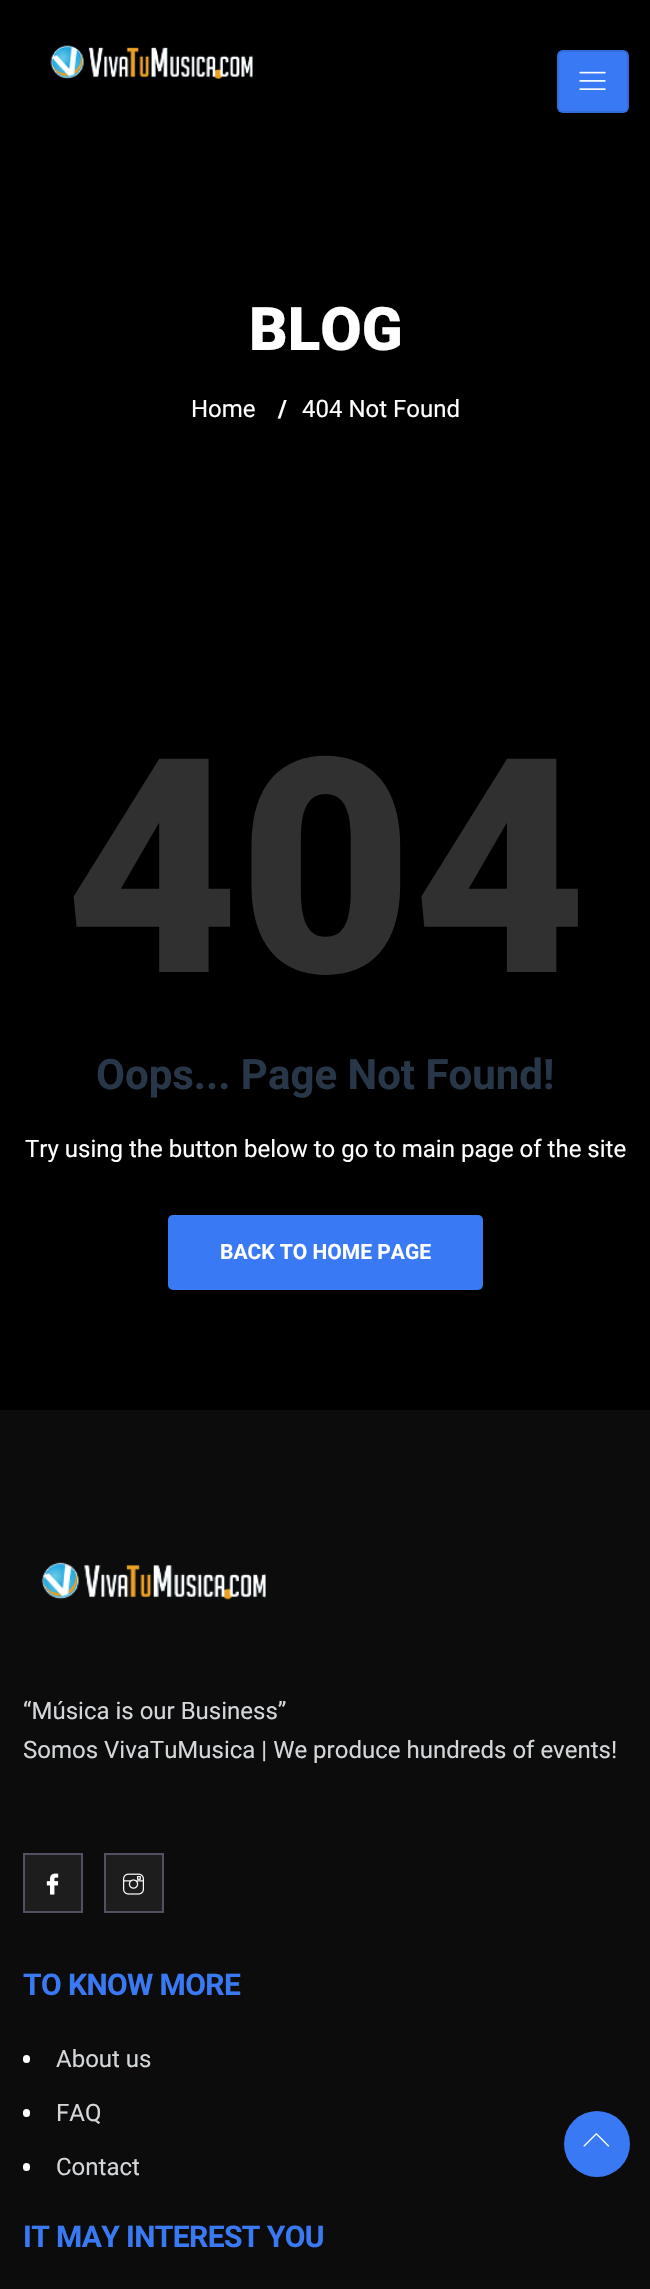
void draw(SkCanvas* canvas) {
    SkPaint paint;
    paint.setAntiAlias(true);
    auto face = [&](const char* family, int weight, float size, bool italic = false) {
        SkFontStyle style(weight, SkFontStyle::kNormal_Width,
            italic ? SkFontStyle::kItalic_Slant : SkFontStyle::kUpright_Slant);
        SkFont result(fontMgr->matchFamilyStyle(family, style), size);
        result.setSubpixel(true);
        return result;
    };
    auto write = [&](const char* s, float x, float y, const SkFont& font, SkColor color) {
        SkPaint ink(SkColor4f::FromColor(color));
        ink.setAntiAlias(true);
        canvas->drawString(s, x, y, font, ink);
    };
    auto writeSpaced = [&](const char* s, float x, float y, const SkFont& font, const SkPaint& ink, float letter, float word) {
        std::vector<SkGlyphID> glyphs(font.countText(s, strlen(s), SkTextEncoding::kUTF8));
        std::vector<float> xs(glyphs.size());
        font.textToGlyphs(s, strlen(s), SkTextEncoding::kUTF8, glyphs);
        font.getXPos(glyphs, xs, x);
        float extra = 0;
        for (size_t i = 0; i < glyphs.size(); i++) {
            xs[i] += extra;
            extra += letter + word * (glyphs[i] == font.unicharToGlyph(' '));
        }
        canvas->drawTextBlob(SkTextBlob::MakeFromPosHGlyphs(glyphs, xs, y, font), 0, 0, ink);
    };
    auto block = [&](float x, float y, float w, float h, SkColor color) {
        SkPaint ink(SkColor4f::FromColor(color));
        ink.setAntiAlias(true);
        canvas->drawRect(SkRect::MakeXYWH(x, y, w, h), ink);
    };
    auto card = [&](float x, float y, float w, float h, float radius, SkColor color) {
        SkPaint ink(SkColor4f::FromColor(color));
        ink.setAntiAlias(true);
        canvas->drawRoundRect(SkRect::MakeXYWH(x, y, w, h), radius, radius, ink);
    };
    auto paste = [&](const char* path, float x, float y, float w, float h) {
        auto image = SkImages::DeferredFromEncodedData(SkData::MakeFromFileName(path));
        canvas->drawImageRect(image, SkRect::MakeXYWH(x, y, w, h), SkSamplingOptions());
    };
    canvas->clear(SK_ColorBLACK);
    paste("pic1.png", 50, 45, 203, 34);
    card(557, 50, 72, 63, 6, SkColorSetRGB(57, 121, 244));
    paint.setStyle(SkPaint::kStroke_Style);
    paint.setStrokeWidth(2);
    paint.setColor(SkColorSetARGB(26, 0, 0, 0));
    canvas->drawRoundRect(SkRect::MakeXYWH(558, 51, 70, 61), 5, 5, paint);
    paste("pic2.png", 579, 71, 27, 19);
    auto kFont1 = face("Roboto", 900, 60);
    write("BLOG", 249, 350, kFont1, SK_ColorWHITE);
    auto kFont2 = face("Roboto", 400, 24);
    write("Home", 191, 417, kFont2, SK_ColorWHITE);
    auto kFont3 = face("Roboto", 700, 24);
    write("/", 278, 417, kFont3, SK_ColorWHITE);
    write("404 Not Found", 302, 417, kFont2, SK_ColorWHITE);
    auto kFont4 = face("Roboto", 900, 300);
    write("404", 65, 972, kFont4, SkColorSetRGB(48, 48, 48));
    auto kFont5 = face("Roboto", 700, 42);
    write("Oops... Page Not Found!", 96, 1089, kFont5, SkColorSetRGB(40, 55, 71));
    write("Try using the button below to go to main page of the site", 25, 1157, kFont2, SK_ColorWHITE);
    card(168, 1215, 315, 75, 5, SkColorSetRGB(57, 121, 244));
    auto kFont6 = face("Roboto", 700, 21);
    write("BACK TO HOME PAGE", 220, 1259, kFont6, SK_ColorWHITE);
    block(0, 1410, 650, 879, SkColorSetRGB(12, 12, 12));
    paste("pic3.png", 41, 1562, 225, 38);
    write("“Música is our Business”", 23, 1719, kFont2, SkColorSetRGB(212, 215, 218));
    write("Somos VivaTuMusica | We produce hundreds of events!", 23, 1758, kFont2, SkColorSetRGB(212, 215, 218));
    paint.setStyle(SkPaint::kFill_Style);
    paint.setColor(SkColorSetRGB(29, 29, 29));
    canvas->drawRect(SkRect::MakeXYWH(24, 1854, 58, 58), paint);
    paint.setStyle(SkPaint::kStroke_Style);
    paint.setColor(SkColorSetRGB(82, 81, 100));
    canvas->drawRect(SkRect::MakeXYWH(24, 1854, 58, 58), paint);
    paste("pic4.png", 46, 1873, 13, 22);
    paint.setStyle(SkPaint::kFill_Style);
    paint.setColor(SkColorSetRGB(29, 29, 29));
    canvas->drawRect(SkRect::MakeXYWH(105, 1854, 58, 58), paint);
    paint.setStyle(SkPaint::kStroke_Style);
    paint.setColor(SkColorSetRGB(82, 81, 100));
    canvas->drawRect(SkRect::MakeXYWH(105, 1854, 58, 58), paint);
    paste("pic5.png", 123, 1873, 21, 22);
    auto kFont7 = face("Roboto", 700, 30);
    paint.setStyle(SkPaint::kFill_Style);
    paint.setColor(SkColorSetRGB(57, 121, 244));
    writeSpaced("TO KNOW MORE", 23, 1995, kFont7, paint, -0.6f, 0);
    card(23, 2055, 7, 8, 3.5f, SK_ColorWHITE);
    write("About us", 56, 2067, kFont2, SkColorSetRGB(212, 215, 218));
    card(23, 2109, 7, 8, 3.5f, SK_ColorWHITE);
    write("FAQ", 56, 2121, kFont2, SkColorSetRGB(212, 215, 218));
    card(23, 2163, 7, 8, 3.5f, SK_ColorWHITE);
    write("Contact", 56, 2175, kFont2, SkColorSetRGB(212, 215, 218));
    writeSpaced("IT MAY INTEREST YOU", 23, 2247, kFont7, paint, -0.6f, 0);
    canvas->drawCircle(597, 2144, 33, paint);
    paste("pic6.png", 583, 2133, 27, 14);
}
